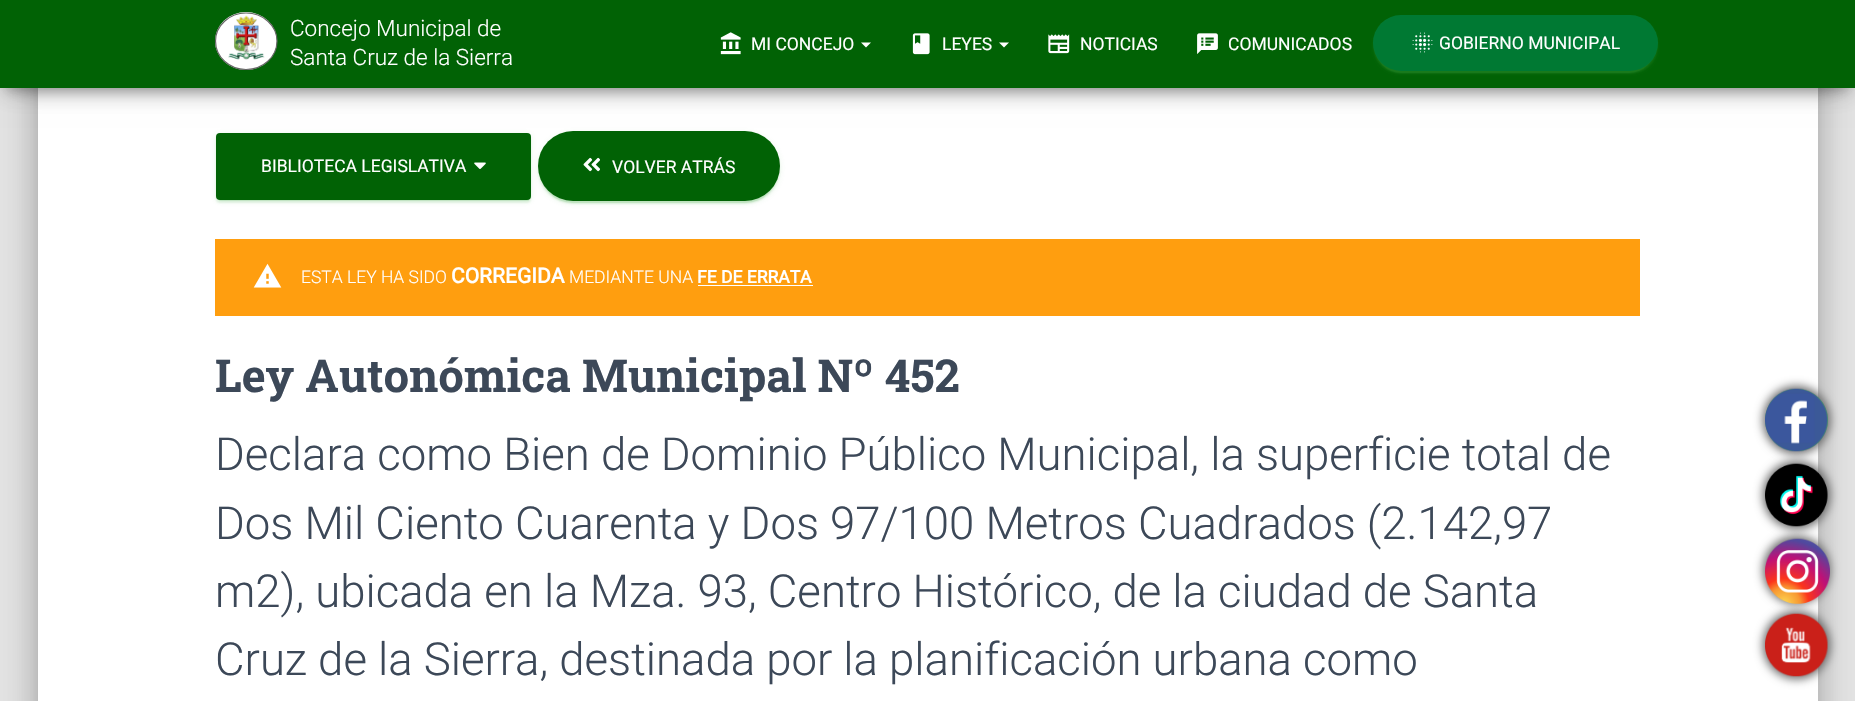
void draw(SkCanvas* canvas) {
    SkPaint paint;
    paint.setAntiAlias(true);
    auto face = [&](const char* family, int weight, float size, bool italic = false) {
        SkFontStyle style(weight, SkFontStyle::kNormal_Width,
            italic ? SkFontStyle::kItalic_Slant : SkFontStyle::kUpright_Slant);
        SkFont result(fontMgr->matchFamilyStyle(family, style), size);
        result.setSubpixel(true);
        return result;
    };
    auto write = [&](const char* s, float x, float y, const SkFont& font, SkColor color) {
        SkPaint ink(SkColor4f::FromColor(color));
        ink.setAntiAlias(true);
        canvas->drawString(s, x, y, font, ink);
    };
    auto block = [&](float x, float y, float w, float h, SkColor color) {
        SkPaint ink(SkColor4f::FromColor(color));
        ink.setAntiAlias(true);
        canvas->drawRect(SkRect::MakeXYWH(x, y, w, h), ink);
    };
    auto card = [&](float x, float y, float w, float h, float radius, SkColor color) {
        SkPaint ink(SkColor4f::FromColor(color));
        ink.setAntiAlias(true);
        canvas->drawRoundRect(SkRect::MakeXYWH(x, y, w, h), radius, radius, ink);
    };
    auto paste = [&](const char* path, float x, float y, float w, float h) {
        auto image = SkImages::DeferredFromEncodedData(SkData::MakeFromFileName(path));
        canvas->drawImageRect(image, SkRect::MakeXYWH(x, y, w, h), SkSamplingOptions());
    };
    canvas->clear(SkColorSetRGB(229, 229, 229));
    paint.setColor(SkColorSetARGB(51, 0, 0, 0));
    paint.setMaskFilter(SkMaskFilter::MakeBlur(kNormal_SkBlurStyle, 6));
    canvas->drawRoundRect(SkRect::MakeXYWH(44, 16, 1767, 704), 1, 1, paint);
    paint.setMaskFilter(nullptr);
    paint.setColor(SkColorSetARGB(31, 0, 0, 0));
    paint.setMaskFilter(SkMaskFilter::MakeBlur(kNormal_SkBlurStyle, 19));
    canvas->drawRoundRect(SkRect::MakeXYWH(31, 1, 1793, 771), 14, 14, paint);
    paint.setMaskFilter(nullptr);
    paint.setColor(SkColorSetARGB(36, 0, 0, 0));
    paint.setMaskFilter(SkMaskFilter::MakeBlur(kNormal_SkBlurStyle, 15));
    canvas->drawRoundRect(SkRect::MakeXYWH(35, 18, 1785, 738), 10, 10, paint);
    paint.setMaskFilter(nullptr);
    block(38, 88, 1780, 613, SK_ColorWHITE);
    paint.setColor(SkColorSetARGB(51, 0, 0, 0));
    paint.setMaskFilter(SkMaskFilter::MakeBlur(kNormal_SkBlurStyle, 6));
    canvas->drawRect(SkRect::MakeXYWH(6, 16, 1843, 75), paint);
    paint.setMaskFilter(nullptr);
    paint.setColor(SkColorSetARGB(31, 0, 0, 0));
    paint.setMaskFilter(SkMaskFilter::MakeBlur(kNormal_SkBlurStyle, 12.5f));
    canvas->drawRect(SkRect::MakeXYWH(0, 4, 1855, 87), paint);
    paint.setMaskFilter(nullptr);
    paint.setColor(SkColorSetARGB(107, 0, 0, 0));
    paint.setMaskFilter(SkMaskFilter::MakeBlur(kNormal_SkBlurStyle, 12.5f));
    canvas->drawRect(SkRect::MakeXYWH(15, 28, 1825, 57), paint);
    paint.setMaskFilter(nullptr);
    block(0, 0, 1855, 88, SkColorSetRGB(1, 98, 5));
    paint.setColor(SK_ColorWHITE);
    canvas->drawOval(SkRect::MakeXYWH(215, 12, 62, 58), paint);
    paint.setStyle(SkPaint::kStroke_Style);
    paint.setStrokeWidth(1.2f);
    paint.setColor(SkColorSetRGB(102, 102, 102));
    canvas->drawPath(SkPathBuilder().moveTo(246, 13).cubicTo(263, 13, 277, 25.5f, 277, 41).cubicTo(277, 57, 263, 69.5f, 246, 69.5f).cubicTo(229.5f, 69.5f, 215.5f, 57, 215.5f, 41).cubicTo(215.5f, 25.5f, 229.5f, 13, 246, 13).close().detach(), paint);
    paste("pic1.png", 228, 15, 37, 45);
    auto kFont1 = face("Roboto", 300, 22.5f);
    write("Concejo Municipal de", 290, 36, kFont1, SK_ColorWHITE);
    write("Santa Cruz de la Sierra", 290, 65, kFont1, SK_ColorWHITE);
    paste("pic2.png", 720, 32, 21, 23);
    auto kFont2 = face("Roboto", 400, 17.5f);
    write("MI CONCEJO", 751, 50, kFont2, SK_ColorWHITE);
    paint.setStyle(SkPaint::kFill_Style);
    paint.setColor(SK_ColorWHITE);
    canvas->drawPath(SkPathBuilder().moveTo(861, 42.5f).lineTo(871, 42.5f).lineTo(866, 47.5f).close().detach(), paint);
    paste("pic3.png", 912, 33, 18, 22);
    write("LEYES", 942, 50, kFont2, SK_ColorWHITE);
    canvas->drawPath(SkPathBuilder().moveTo(999, 42.5f).lineTo(1009, 42.5f).lineTo(1004, 47.5f).close().detach(), paint);
    paste("pic4.png", 1048, 34, 22, 20);
    write("NOTICIAS", 1080, 50, kFont2, SK_ColorWHITE);
    paste("pic5.png", 1197, 33, 21, 21);
    write("COMUNICADOS", 1228, 50, kFont2, SK_ColorWHITE);
    paint.setColor(SkColorSetARGB(51, 76, 175, 80));
    paint.setMaskFilter(SkMaskFilter::MakeBlur(kNormal_SkBlurStyle, 0.5f));
    canvas->drawRoundRect(SkRect::MakeXYWH(1375, 21, 280, 52), 26, 26, paint);
    paint.setMaskFilter(nullptr);
    paint.setColor(SkColorSetARGB(36, 76, 175, 80));
    paint.setMaskFilter(SkMaskFilter::MakeBlur(kNormal_SkBlurStyle, 1));
    canvas->drawRoundRect(SkRect::MakeXYWH(1373, 18, 285, 56), 28, 28, paint);
    paint.setMaskFilter(nullptr);
    card(1373, 15, 285, 56, 28, SkColorSetRGB(0, 121, 51));
    paste("pic6.png", 1412, 32, 21, 21);
    write("GOBIERNO MUNICIPAL", 1439, 49, kFont2, SK_ColorWHITE);
    paint.setColor(SkColorSetARGB(31, 76, 175, 80));
    paint.setMaskFilter(SkMaskFilter::MakeBlur(kNormal_SkBlurStyle, 3));
    canvas->drawRoundRect(SkRect::MakeXYWH(216, 134, 315, 67), 4, 4, paint);
    paint.setMaskFilter(nullptr);
    paint.setColor(SkColorSetARGB(51, 76, 175, 80));
    paint.setMaskFilter(SkMaskFilter::MakeBlur(kNormal_SkBlurStyle, 0.5f));
    canvas->drawRoundRect(SkRect::MakeXYWH(219, 139, 310, 62), 1, 1, paint);
    paint.setMaskFilter(nullptr);
    paint.setColor(SkColorSetARGB(36, 76, 175, 80));
    paint.setMaskFilter(SkMaskFilter::MakeBlur(kNormal_SkBlurStyle, 1));
    canvas->drawRoundRect(SkRect::MakeXYWH(216, 135, 315, 68), 4, 4, paint);
    paint.setMaskFilter(nullptr);
    card(216, 133, 315, 67, 4, SkColorSetRGB(1, 98, 5));
    write("BIBLIOTECA LEGISLATIVA", 261, 172, kFont2, SK_ColorWHITE);
    paste("pic7.png", 474, 162, 12, 7);
    paint.setColor(SkColorSetARGB(31, 76, 175, 80));
    paint.setMaskFilter(SkMaskFilter::MakeBlur(kNormal_SkBlurStyle, 3));
    canvas->drawRoundRect(SkRect::MakeXYWH(538, 133, 242, 70), 35, 35, paint);
    paint.setMaskFilter(nullptr);
    paint.setColor(SkColorSetARGB(51, 76, 175, 80));
    paint.setMaskFilter(SkMaskFilter::MakeBlur(kNormal_SkBlurStyle, 0.5f));
    canvas->drawRoundRect(SkRect::MakeXYWH(540, 138, 238, 65), 32.5f, 32.5f, paint);
    paint.setMaskFilter(nullptr);
    paint.setColor(SkColorSetARGB(36, 76, 175, 80));
    paint.setMaskFilter(SkMaskFilter::MakeBlur(kNormal_SkBlurStyle, 1));
    canvas->drawRoundRect(SkRect::MakeXYWH(538, 134, 242, 70), 35, 35, paint);
    paint.setMaskFilter(nullptr);
    card(538, 131, 242, 70, 35, SkColorSetRGB(1, 98, 5));
    paste("pic8.png", 583, 157, 17, 15);
    write("VOLVER ATRÁS", 612, 173, kFont2, SK_ColorWHITE);
    block(215, 239, 1425, 77, SkColorSetRGB(255, 158, 15));
    paste("pic9.png", 253, 263, 29, 25);
    auto kFont3 = face("Roboto", 300, 17.5f);
    write("ESTA LEY HA SIDO", 301, 283, kFont3, SK_ColorWHITE);
    auto kFont4 = face("Roboto", 700, 21);
    write("CORREGIDA", 451, 283, kFont4, SK_ColorWHITE);
    write("MEDIANTE UNA", 569, 283, kFont3, SK_ColorWHITE);
    auto kFont5 = face("Roboto", 700, 17.5f);
    write("FE DE ERRATA", 697, 283, kFont5, SK_ColorWHITE);
    block(698, 285, 115, 1, SK_ColorWHITE);
    auto kFont6 = face("Roboto Slab", 700, 45.5f);
    write("Ley Autonómica Municipal Nº 452", 215, 392, kFont6, SkColorSetRGB(60, 72, 88));
    auto kFont7 = face("Roboto", 300, 45.5f);
    write("Declara como Bien de Dominio Público Municipal, la superficie total de", 215, 470, kFont7, SkColorSetRGB(60, 72, 88));
    write("Dos Mil Ciento Cuarenta y Dos 97/100 Metros Cuadrados (2.142,97", 215, 539, kFont7, SkColorSetRGB(60, 72, 88));
    write("m2), ubicada en la Mza. 93, Centro Histórico, de la ciudad de Santa", 215, 607, kFont7, SkColorSetRGB(60, 72, 88));
    write("Cruz de la Sierra, destinada por la planificación urbana como", 215, 675, kFont7, SkColorSetRGB(60, 72, 88));
    paint.setColor(SkColorSetRGB(102, 102, 102));
    paint.setMaskFilter(SkMaskFilter::MakeBlur(kNormal_SkBlurStyle, 5));
    canvas->drawRoundRect(SkRect::MakeXYWH(1763, 386, 67, 68), 33.5f, 33.5f, paint);
    paint.setMaskFilter(nullptr);
    card(1765, 389, 63, 62, 31, SkColorSetRGB(76, 175, 80));
    paste("pic10.png", 1765, 388, 63, 64);
    paint.setMaskFilter(SkMaskFilter::MakeBlur(kNormal_SkBlurStyle, 5));
    canvas->drawRoundRect(SkRect::MakeXYWH(1763, 611, 67, 68), 33.5f, 33.5f, paint);
    paint.setMaskFilter(nullptr);
    paste("pic13.png", 1765, 613, 63, 64);
    paint.setMaskFilter(SkMaskFilter::MakeBlur(kNormal_SkBlurStyle, 5));
    canvas->drawRoundRect(SkRect::MakeXYWH(1763, 536, 67, 68), 33.5f, 33.5f, paint);
    paint.setMaskFilter(nullptr);
    paste("pic12.png", 1765, 538, 65, 66);
    paint.setMaskFilter(SkMaskFilter::MakeBlur(kNormal_SkBlurStyle, 5));
    canvas->drawRoundRect(SkRect::MakeXYWH(1763, 461, 67, 68), 33.5f, 33.5f, paint);
    paint.setMaskFilter(nullptr);
    paste("pic11.png", 1765, 463, 63, 64);
}
